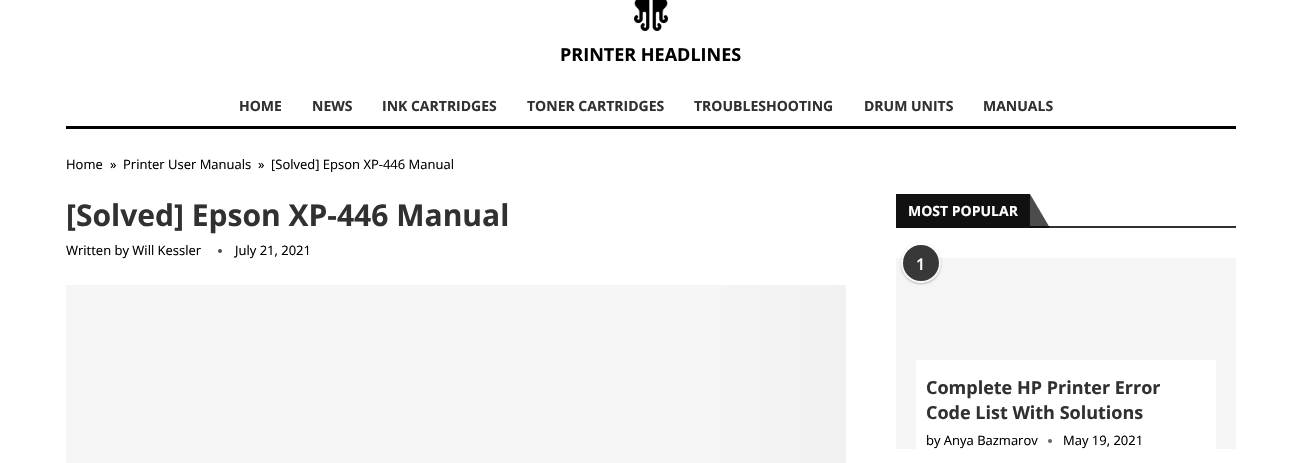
void draw(SkCanvas* canvas) {
    SkPaint paint;
    paint.setAntiAlias(true);
    auto face = [&](const char* family, int weight, float size, bool italic = false) {
        SkFontStyle style(weight, SkFontStyle::kNormal_Width,
            italic ? SkFontStyle::kItalic_Slant : SkFontStyle::kUpright_Slant);
        SkFont result(fontMgr->matchFamilyStyle(family, style), size);
        result.setSubpixel(true);
        return result;
    };
    auto write = [&](const char* s, float x, float y, const SkFont& font, SkColor color) {
        SkPaint ink(SkColor4f::FromColor(color));
        ink.setAntiAlias(true);
        canvas->drawString(s, x, y, font, ink);
    };
    auto block = [&](float x, float y, float w, float h, SkColor color) {
        SkPaint ink(SkColor4f::FromColor(color));
        ink.setAntiAlias(true);
        canvas->drawRect(SkRect::MakeXYWH(x, y, w, h), ink);
    };
    auto paste = [&](const char* path, float x, float y, float w, float h) {
        auto image = SkImages::DeferredFromEncodedData(SkData::MakeFromFileName(path));
        canvas->drawImageRect(image, SkRect::MakeXYWH(x, y, w, h), SkSamplingOptions());
    };
    canvas->clear(SK_ColorWHITE);
    paste("pic1.png", 634, 0, 34, 31);
    auto kFont1 = face("Open Sans", 700, 18);
    write("PRINTER HEADLINES", 560, 61, kFont1, SK_ColorBLACK);
    block(66, 126, 1170, 3, SK_ColorBLACK);
    auto kFont2 = face("Open Sans", 700, 14);
    write("HOME", 239, 111, kFont2, SkColorSetRGB(49, 49, 49));
    write("NEWS", 312, 111, kFont2, SkColorSetRGB(49, 49, 49));
    write("INK CARTRIDGES", 382, 111, kFont2, SkColorSetRGB(49, 49, 49));
    write("TONER CARTRIDGES", 527, 111, kFont2, SkColorSetRGB(49, 49, 49));
    write("TROUBLESHOOTING", 694, 111, kFont2, SkColorSetRGB(49, 49, 49));
    write("DRUM UNITS", 864, 111, kFont2, SkColorSetRGB(49, 49, 49));
    write("MANUALS", 983, 111, kFont2, SkColorSetRGB(49, 49, 49));
    auto kFont3 = face("Open Sans", 400, 13);
    write("Home", 66, 169, kFont3, SK_ColorBLACK);
    write("»", 110, 169, kFont3, SK_ColorBLACK);
    write("Printer User Manuals", 123, 169, kFont3, SK_ColorBLACK);
    write("»", 258, 169, kFont3, SK_ColorBLACK);
    write("[Solved] Epson XP-446 Manual", 271, 169, kFont3, SK_ColorBLACK);
    auto kFont4 = face("Open Sans", 700, 30);
    write("[Solved] Epson XP-446 Manual", 66, 226, kFont4, SkColorSetRGB(49, 49, 49));
    write("Written by Will Kessler", 66, 255, kFont3, SK_ColorBLACK);
    paint.setColor(SkColorSetRGB(77, 77, 77));
    canvas->drawCircle(220, 251, 2, paint);
    write("July 21, 2021", 235, 255, kFont3, SK_ColorBLACK);
    block(66, 285, 100, 178, SkColorSetRGB(245, 245, 245));
    {
        const SkColor colors[] = {SkColorSetRGB(245, 245, 245), SkColorSetRGB(239, 239, 239), SkColorSetRGB(245, 245, 245), SkColorSetRGB(245, 245, 245)};
        const float stops[] = {0, 0.15f, 0.4f, 1};
        const SkPoint ends[] = {{1066, 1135}, {166, 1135}};
        paint.setShader(SkGradientShader::MakeLinear(ends, colors, stops, 4, SkTileMode::kClamp));
        paint.setAlpha(255);
    }
    canvas->drawRect(SkRect::MakeXYWH(166, 285, 680, 178), paint);
    block(1030, 226, 206, 2, SkColorSetRGB(49, 49, 49));
    block(896, 194, 134, 34, SkColorSetRGB(17, 17, 17));
    write("MOST POPULAR", 908, 216, kFont2, SK_ColorWHITE);
    paint.setShader(nullptr);
    paint.setColor(SkColorSetARGB(179, 0, 0, 0));
    canvas->drawPath(SkPathBuilder().moveTo(1050, 228).lineTo(1030, 228).lineTo(1030, 194).close().detach(), paint);
    block(896, 258, 340, 191, SkColorSetRGB(245, 245, 245));
    canvas->save();
    canvas->clipPath(SkPathBuilder(SkPathFillType::kEvenOdd).moveTo(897, 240).lineTo(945, 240).lineTo(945, 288).lineTo(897, 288).close().moveTo(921, 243).cubicTo(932, 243, 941, 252, 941, 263).cubicTo(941, 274, 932, 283, 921, 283).cubicTo(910, 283, 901, 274, 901, 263).cubicTo(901, 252, 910, 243, 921, 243).close().detach(), true);
    paint.setColor(SkColorSetARGB(64, 0, 0, 0));
    paint.setMaskFilter(SkMaskFilter::MakeBlur(kNormal_SkBlurStyle, 1));
    canvas->drawRoundRect(SkRect::MakeXYWH(901, 244, 40, 40), 20, 20, paint);
    paint.setMaskFilter(nullptr);
    canvas->restore();
    paint.setColor(SkColorSetARGB(77, 255, 255, 255));
    canvas->drawCircle(921, 263, 20, paint);
    paint.setColor(SkColorSetRGB(56, 56, 56));
    canvas->drawCircle(921, 263, 18, paint);
    auto kFont5 = face("Open Sans", 600, 16);
    write("1", 916, 270, kFont5, SK_ColorWHITE);
    block(916, 360, 300, 89, SK_ColorWHITE);
    write("Complete HP Printer Error", 926, 394, kFont1, SkColorSetRGB(49, 49, 49));
    write("Code List With Solutions", 926, 419, kFont1, SkColorSetRGB(49, 49, 49));
    write("by Anya Bazmarov", 926, 445, kFont3, SK_ColorBLACK);
    paint.setColor(SkColorSetRGB(102, 102, 102));
    canvas->drawCircle(1050, 441, 2, paint);
    write("May 19, 2021", 1063, 445, kFont3, SK_ColorBLACK);
}
